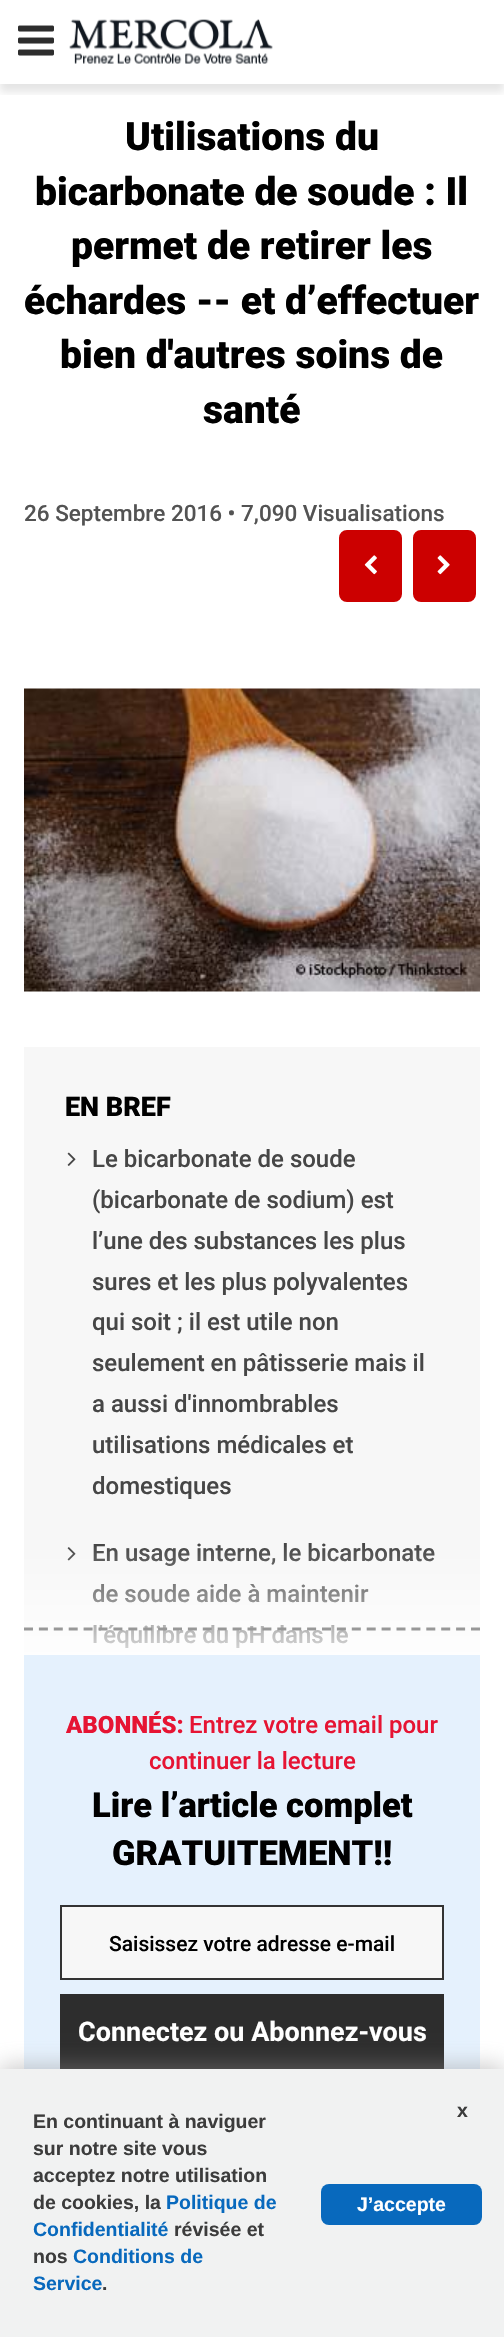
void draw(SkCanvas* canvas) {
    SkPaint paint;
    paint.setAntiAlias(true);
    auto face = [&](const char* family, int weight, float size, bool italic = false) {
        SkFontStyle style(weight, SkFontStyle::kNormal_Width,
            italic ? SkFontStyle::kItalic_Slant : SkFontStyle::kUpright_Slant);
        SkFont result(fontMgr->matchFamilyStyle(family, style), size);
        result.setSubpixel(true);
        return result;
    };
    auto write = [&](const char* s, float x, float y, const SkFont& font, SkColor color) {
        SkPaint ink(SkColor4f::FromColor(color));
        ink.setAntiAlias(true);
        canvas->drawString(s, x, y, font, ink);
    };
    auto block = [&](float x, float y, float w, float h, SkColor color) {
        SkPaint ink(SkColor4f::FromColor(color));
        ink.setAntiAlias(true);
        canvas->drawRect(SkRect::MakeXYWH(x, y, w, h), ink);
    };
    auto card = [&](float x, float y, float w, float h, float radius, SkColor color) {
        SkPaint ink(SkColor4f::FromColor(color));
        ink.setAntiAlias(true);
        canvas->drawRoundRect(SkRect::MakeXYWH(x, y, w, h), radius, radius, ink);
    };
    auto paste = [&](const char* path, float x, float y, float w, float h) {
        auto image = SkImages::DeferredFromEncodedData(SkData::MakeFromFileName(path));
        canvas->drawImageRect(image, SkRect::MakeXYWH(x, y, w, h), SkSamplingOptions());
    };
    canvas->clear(SK_ColorWHITE);
    canvas->save();
    canvas->clipRect(SkRect::MakeXYWH(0, 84, 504, 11));
    paint.setColor(SkColorSetARGB(26, 0, 0, 0));
    paint.setMaskFilter(SkMaskFilter::MakeBlur(kNormal_SkBlurStyle, 4));
    canvas->drawRect(SkRect::MakeXYWH(0, 8, 504, 84), paint);
    paint.setMaskFilter(nullptr);
    canvas->restore();
    paste("pic1.png", 18, 25, 36, 31);
    paste("pic2.png", 69, 19, 204, 45);
    auto kFont1 = face("Roboto", 900, 39);
    write("Utilisations du", 125, 150, kFont1, SK_ColorBLACK);
    write("bicarbonate de soude : Il", 35, 205, kFont1, SK_ColorBLACK);
    write("permet de retirer les", 71, 259, kFont1, SK_ColorBLACK);
    write("échardes -- et d’effectuer", 24, 314, kFont1, SK_ColorBLACK);
    write("bien d'autres soins de", 60, 368, kFont1, SK_ColorBLACK);
    write("santé", 203, 423, kFont1, SK_ColorBLACK);
    auto kFont2 = face("Roboto", 500, 22.5f);
    write("26 Septembre 2016 • 7,090 Visualisations", 24, 521, kFont2, SkColorSetRGB(83, 83, 83));
    paint.setColor(SkColorSetRGB(204, 0, 0));
    canvas->drawRoundRect(SkRect::MakeXYWH(340, 531, 61, 70), 7, 7, paint);
    paint.setStyle(SkPaint::kStroke_Style);
    paint.setStrokeWidth(2);
    canvas->drawRoundRect(SkRect::MakeXYWH(340, 531, 61, 70), 7, 7, paint);
    paste("pic3.png", 364, 555, 13, 20);
    paint.setStyle(SkPaint::kFill_Style);
    canvas->drawRoundRect(SkRect::MakeXYWH(414, 531, 61, 70), 7, 7, paint);
    paint.setStyle(SkPaint::kStroke_Style);
    canvas->drawRoundRect(SkRect::MakeXYWH(414, 531, 61, 70), 7, 7, paint);
    paste("pic4.png", 437, 555, 13, 20);
    paste("pic5.png", 24, 688, 456, 304);
    block(24, 1047, 456, 608, SkColorSetRGB(247, 247, 247));
    auto kFont3 = face("Roboto", 900, 27);
    write("EN BREF", 65, 1116, kFont3, SK_ColorBLACK);
    paste("pic6.png", 67, 1152, 9, 14);
    auto kFont4 = face("Roboto", 500, 24);
    write("Le bicarbonate de soude", 92, 1167, kFont4, SkColorSetRGB(70, 70, 70));
    write("(bicarbonate de sodium) est", 92, 1208, kFont4, SkColorSetRGB(70, 70, 70));
    write("l’une des substances les plus", 92, 1249, kFont4, SkColorSetRGB(70, 70, 70));
    write("sures et les plus polyvalentes", 92, 1290, kFont4, SkColorSetRGB(70, 70, 70));
    write("qui soit ; il est utile non", 92, 1330, kFont4, SkColorSetRGB(70, 70, 70));
    write("seulement en pâtisserie mais il", 92, 1371, kFont4, SkColorSetRGB(70, 70, 70));
    write("a aussi d'innombrables", 92, 1412, kFont4, SkColorSetRGB(70, 70, 70));
    write("utilisations médicales et", 92, 1453, kFont4, SkColorSetRGB(70, 70, 70));
    write("domestiques", 92, 1494, kFont4, SkColorSetRGB(70, 70, 70));
    paste("pic7.png", 67, 1547, 9, 14);
    write("En usage interne, le bicarbonate", 92, 1561, kFont4, SkColorSetRGB(70, 70, 70));
    write("de soude aide à maintenir", 92, 1602, kFont4, SkColorSetRGB(70, 70, 70));
    write("l’équilibre du pH dans le", 92, 1643, kFont4, SkColorSetRGB(70, 70, 70));
    paint.setStyle(SkPaint::kFill_Style);
    {
        const SkColor colors[] = {SK_ColorWHITE, SK_ColorWHITE, SkColorSetARGB(0, 255, 255, 255)};
        const float stops[] = {0, 0.93f, 1};
        const SkPoint ends[] = {{252, 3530}, {252, 1544}};
        paint.setShader(SkGradientShader::MakeLinear(ends, colors, stops, 3, SkTileMode::kClamp));
        paint.setAlpha(255);
    }
    canvas->drawRect(SkRect::MakeXYWH(24, 1547, 456, 108), paint);
    paint.setStyle(SkPaint::kStroke_Style);
    paint.setStrokeWidth(3);
    paint.setShader(nullptr);
    paint.setColor(SkColorSetRGB(152, 152, 152));
    paint.setPathEffect(SkDashPathEffect::Make({{9, 5.9f}}, 0));
    canvas->drawPath(SkPathBuilder().moveTo(24, 1629).lineTo(480, 1629).detach(), paint);
    paint.setPathEffect(nullptr);
    block(24, 1655, 456, 414, SkColorSetRGB(229, 241, 253));
    auto kFont5 = face("Roboto", 900, 24);
    write("ABONNÉS:", 66, 1733, kFont5, SkColorSetRGB(230, 20, 51));
    write("Entrez votre email pour", 189, 1733, kFont4, SkColorSetRGB(230, 20, 51));
    write("continuer la lecture", 149, 1769, kFont4, SkColorSetRGB(230, 20, 51));
    auto kFont6 = face("Roboto", 900, 34.5f);
    write("Lire l’article complet", 92, 1817, kFont6, SK_ColorBLACK);
    write("GRATUITEMENT!!", 112, 1865, kFont6, SK_ColorBLACK);
    paint.setStyle(SkPaint::kFill_Style);
    paint.setColor(SkColorSetRGB(247, 247, 247));
    canvas->drawRect(SkRect::MakeXYWH(61, 1906, 382, 73), paint);
    paint.setStyle(SkPaint::kStroke_Style);
    paint.setStrokeWidth(2);
    paint.setColor(SkColorSetRGB(51, 51, 51));
    canvas->drawRect(SkRect::MakeXYWH(61, 1906, 382, 73), paint);
    auto kFont7 = face("Roboto", 500, 21);
    write("Saisissez votre adresse e-mail", 109, 1951, kFont7, SK_ColorBLACK);
    block(60, 1994, 384, 75, SkColorSetRGB(45, 45, 45));
    auto kFont8 = face("Roboto", 700, 27);
    write("Connectez ou Abonnez-vous", 78, 2041, kFont8, SK_ColorWHITE);
    paint.setStyle(SkPaint::kFill_Style);
    paint.setColor(SkColorSetARGB(128, 146, 144, 144));
    paint.setMaskFilter(SkMaskFilter::MakeBlur(kNormal_SkBlurStyle, 11));
    canvas->drawRect(SkRect::MakeXYWH(0, 2066, 504, 268), paint);
    paint.setMaskFilter(nullptr);
    block(0, 2069, 504, 268, SkColorSetRGB(241, 242, 242));
    auto kFont9 = face("Liberation Sans", 700, 19.5f);
    write("x", 457, 2117, kFont9, SkColorSetRGB(60, 60, 60));
    write("En continuant à naviguer", 33, 2128, kFont9, SkColorSetRGB(60, 60, 60));
    write("sur notre site vous", 33, 2155, kFont9, SkColorSetRGB(60, 60, 60));
    write("acceptez notre utilisation", 33, 2182, kFont9, SkColorSetRGB(60, 60, 60));
    write("de cookies, la", 33, 2209, kFont9, SkColorSetRGB(60, 60, 60));
    write("Politique de", 166, 2209, kFont9, SkColorSetRGB(8, 105, 189));
    write("Confidentialité", 33, 2236, kFont9, SkColorSetRGB(8, 105, 189));
    write("révisée et", 174, 2236, kFont9, SkColorSetRGB(60, 60, 60));
    write("nos", 33, 2263, kFont9, SkColorSetRGB(60, 60, 60));
    write("Conditions de", 73, 2263, kFont9, SkColorSetRGB(8, 105, 189));
    write("Service", 33, 2290, kFont9, SkColorSetRGB(8, 105, 189));
    write(".", 102, 2290, kFont9, SkColorSetRGB(60, 60, 60));
    card(321, 2184, 161, 41, 8, SkColorSetRGB(8, 105, 189));
    write("J’accepte", 357, 2211, kFont9, SK_ColorWHITE);
}
